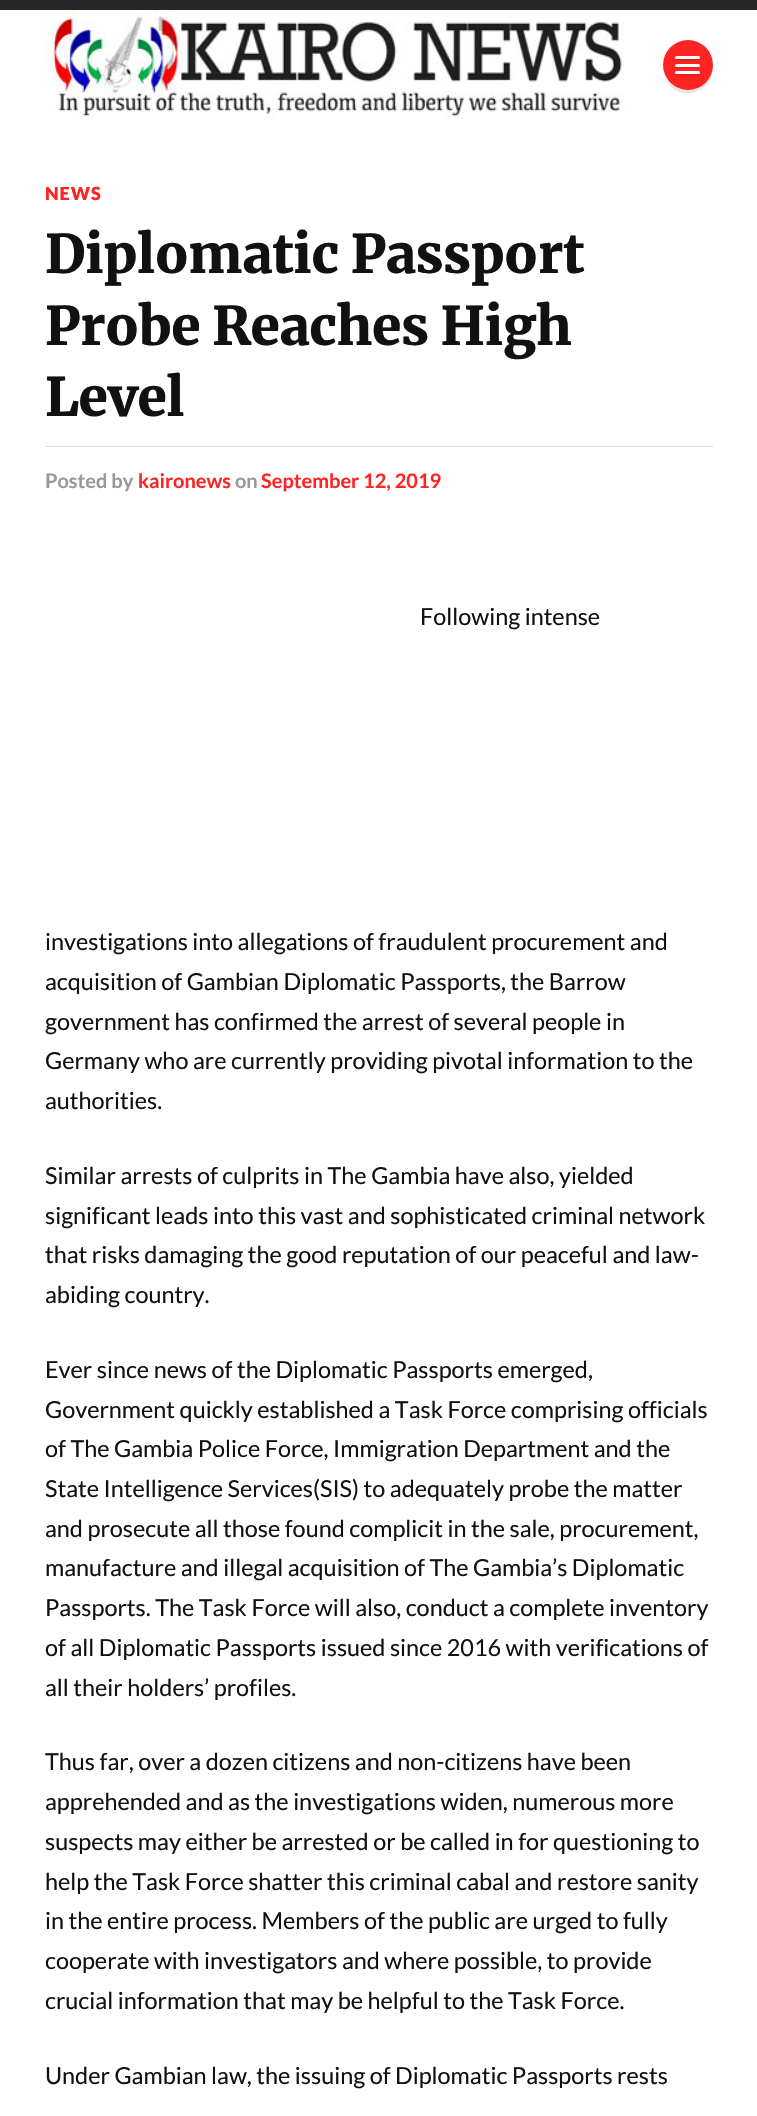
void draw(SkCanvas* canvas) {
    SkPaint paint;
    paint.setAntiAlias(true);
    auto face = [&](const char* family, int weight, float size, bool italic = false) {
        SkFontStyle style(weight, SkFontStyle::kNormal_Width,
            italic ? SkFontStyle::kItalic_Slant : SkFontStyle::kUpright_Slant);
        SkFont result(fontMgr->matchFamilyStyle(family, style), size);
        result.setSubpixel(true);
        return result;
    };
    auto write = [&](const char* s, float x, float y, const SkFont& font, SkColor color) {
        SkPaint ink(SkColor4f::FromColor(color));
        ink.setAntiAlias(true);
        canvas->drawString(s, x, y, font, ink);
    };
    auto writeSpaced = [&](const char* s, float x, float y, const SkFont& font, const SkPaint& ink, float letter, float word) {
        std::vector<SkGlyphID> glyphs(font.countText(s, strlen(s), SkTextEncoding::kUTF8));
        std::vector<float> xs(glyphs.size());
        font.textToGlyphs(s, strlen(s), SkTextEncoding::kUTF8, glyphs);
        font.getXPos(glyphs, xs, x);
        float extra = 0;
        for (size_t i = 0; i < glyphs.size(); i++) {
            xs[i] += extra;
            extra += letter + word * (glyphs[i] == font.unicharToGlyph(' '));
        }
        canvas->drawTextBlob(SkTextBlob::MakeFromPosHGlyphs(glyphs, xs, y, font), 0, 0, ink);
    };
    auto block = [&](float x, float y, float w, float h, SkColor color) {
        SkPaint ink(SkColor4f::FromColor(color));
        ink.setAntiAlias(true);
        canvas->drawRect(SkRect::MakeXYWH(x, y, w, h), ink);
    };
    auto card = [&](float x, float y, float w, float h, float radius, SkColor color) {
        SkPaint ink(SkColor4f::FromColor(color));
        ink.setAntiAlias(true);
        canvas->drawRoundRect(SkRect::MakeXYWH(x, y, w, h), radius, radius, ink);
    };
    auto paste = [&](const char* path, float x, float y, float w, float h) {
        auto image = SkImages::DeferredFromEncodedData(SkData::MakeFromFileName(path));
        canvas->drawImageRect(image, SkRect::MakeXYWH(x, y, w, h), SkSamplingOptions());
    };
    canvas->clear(SK_ColorWHITE);
    block(0, 0, 757, 10, SkColorSetRGB(38, 39, 43));
    paste("pic1.png", 45, 11, 580, 108);
    paint.setColor(SkColorSetRGB(230, 230, 230));
    canvas->drawPath(SkPathBuilder().moveTo(663, 71).cubicTo(664, 77, 667, 82, 671, 87).cubicTo(689, 103, 718, 86, 712, 62).cubicTo(716, 93, 670, 101, 663, 71).close().detach(), paint);
    paint.setColor(SkColorSetRGB(255, 35, 35));
    canvas->drawCircle(688, 65, 25, paint);
    paint.setColor(SkColorSetRGB(230, 32, 32));
    canvas->drawPath(SkPathBuilder().moveTo(675.5f, 58.5f).lineTo(675, 60).cubicTo(675.5f, 62, 679.5f, 61, 680, 61).lineTo(695, 61).cubicTo(695.5f, 61, 699.5f, 62, 700, 60).lineTo(699.5f, 58.5f).cubicTo(699, 59, 676, 59, 675.5f, 58.5f).close().detach(), paint);
    card(675, 56, 25, 3, 1.5f, SK_ColorWHITE);
    canvas->drawPath(SkPathBuilder().moveTo(675, 65.5f).cubicTo(673.5f, 68.5f, 680, 68, 680, 68).lineTo(695, 68).cubicTo(695, 68, 701.5f, 68.5f, 700, 65.5f).lineTo(699, 66).lineTo(676, 66).close().detach(), paint);
    card(675, 64, 25, 3, 1.5f, SK_ColorWHITE);
    canvas->drawPath(SkPathBuilder().moveTo(675.5f, 73.5f).lineTo(675, 75).cubicTo(675.5f, 77, 679.5f, 76, 680, 76).lineTo(695, 76).cubicTo(695.5f, 76, 699.5f, 77, 700, 75).lineTo(699.5f, 73.5f).cubicTo(699, 74, 676, 74, 675.5f, 73.5f).close().detach(), paint);
    card(675, 71, 25, 3, 1.5f, SK_ColorWHITE);
    auto kFont1 = face("Lato", 900, 18);
    paint.setColor(SkColorSetRGB(255, 35, 35));
    writeSpaced("NEWS", 45, 200, kFont1, paint, 1, 0);
    auto kFont2 = face("Merriweather", 900, 53.1f);
    paint.setColor(SkColorSetRGB(17, 17, 17));
    writeSpaced("Diplomatic Passport", 45, 273, kFont2, paint, -0.5f, 0);
    writeSpaced("Probe Reaches High", 45, 345, kFont2, paint, -0.5f, 0);
    writeSpaced("Level", 45, 416, kFont2, paint, -0.5f, 0);
    block(45, 446, 668, 1, SkColorSetRGB(221, 221, 221));
    auto kFont3 = face("Lato", 700, 20);
    write("Posted by", 45, 488, kFont3, SkColorSetRGB(153, 153, 153));
    write("kaironews", 138, 488, kFont3, SkColorSetRGB(255, 35, 35));
    write("on", 235, 488, kFont3, SkColorSetRGB(153, 153, 153));
    write("September 12, 2019", 261, 488, kFont3, SkColorSetRGB(255, 35, 35));
    auto kFont4 = face("Lato", 400, 23.4f);
    write("Following intense", 420, 625, kFont4, SkColorSetRGB(17, 17, 17));
    write("investigations into allegations of fraudulent procurement and", 45, 950, kFont4, SkColorSetRGB(17, 17, 17));
    write("acquisition of Gambian Diplomatic Passports, the Barrow", 45, 990, kFont4, SkColorSetRGB(17, 17, 17));
    write("government has confirmed the arrest of several people in", 45, 1030, kFont4, SkColorSetRGB(17, 17, 17));
    write("Germany who are currently providing pivotal information to the", 45, 1069, kFont4, SkColorSetRGB(17, 17, 17));
    write("authorities.", 45, 1109, kFont4, SkColorSetRGB(17, 17, 17));
    write("Similar arrests of culprits in The Gambia have also, yielded", 45, 1184, kFont4, SkColorSetRGB(17, 17, 17));
    write("significant leads into this vast and sophisticated criminal network", 45, 1224, kFont4, SkColorSetRGB(17, 17, 17));
    write("that risks damaging the good reputation of our peaceful and law-", 45, 1263, kFont4, SkColorSetRGB(17, 17, 17));
    write("abiding country.", 45, 1303, kFont4, SkColorSetRGB(17, 17, 17));
    write("Ever since news of the Diplomatic Passports emerged,", 45, 1378, kFont4, SkColorSetRGB(17, 17, 17));
    write("Government quickly established a Task Force comprising officials", 45, 1418, kFont4, SkColorSetRGB(17, 17, 17));
    write("of The Gambia Police Force, Immigration Department and the", 45, 1457, kFont4, SkColorSetRGB(17, 17, 17));
    write("State Intelligence Services(SIS) to adequately probe the matter", 45, 1497, kFont4, SkColorSetRGB(17, 17, 17));
    write("and prosecute all those found complicit in the sale, procurement,", 45, 1537, kFont4, SkColorSetRGB(17, 17, 17));
    write("manufacture and illegal acquisition of The Gambia’s Diplomatic", 45, 1576, kFont4, SkColorSetRGB(17, 17, 17));
    write("Passports. The Task Force will also, conduct a complete inventory", 45, 1616, kFont4, SkColorSetRGB(17, 17, 17));
    write("of all Diplomatic Passports issued since 2016 with verifications of", 45, 1656, kFont4, SkColorSetRGB(17, 17, 17));
    write("all their holders’ profiles.", 45, 1696, kFont4, SkColorSetRGB(17, 17, 17));
    write("Thus far, over a dozen citizens and non-citizens have been", 45, 1770, kFont4, SkColorSetRGB(17, 17, 17));
    write("apprehended and as the investigations widen, numerous more", 45, 1810, kFont4, SkColorSetRGB(17, 17, 17));
    write("suspects may either be arrested or be called in for questioning to", 45, 1850, kFont4, SkColorSetRGB(17, 17, 17));
    write("help the Task Force shatter this criminal cabal and restore sanity", 45, 1890, kFont4, SkColorSetRGB(17, 17, 17));
    write("in the entire process. Members of the public are urged to fully", 45, 1929, kFont4, SkColorSetRGB(17, 17, 17));
    write("cooperate with investigators and where possible, to provide", 45, 1969, kFont4, SkColorSetRGB(17, 17, 17));
    write("crucial information that may be helpful to the Task Force.", 45, 2009, kFont4, SkColorSetRGB(17, 17, 17));
    write("Under Gambian law, the issuing of Diplomatic Passports rests", 45, 2084, kFont4, SkColorSetRGB(17, 17, 17));
}
